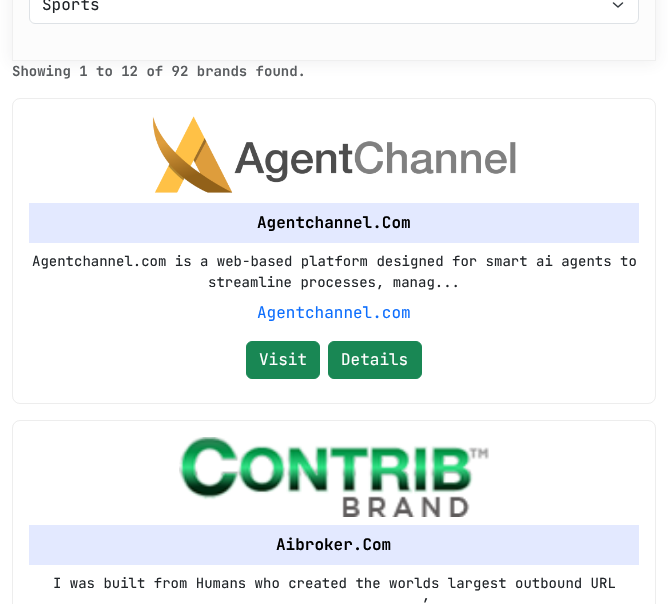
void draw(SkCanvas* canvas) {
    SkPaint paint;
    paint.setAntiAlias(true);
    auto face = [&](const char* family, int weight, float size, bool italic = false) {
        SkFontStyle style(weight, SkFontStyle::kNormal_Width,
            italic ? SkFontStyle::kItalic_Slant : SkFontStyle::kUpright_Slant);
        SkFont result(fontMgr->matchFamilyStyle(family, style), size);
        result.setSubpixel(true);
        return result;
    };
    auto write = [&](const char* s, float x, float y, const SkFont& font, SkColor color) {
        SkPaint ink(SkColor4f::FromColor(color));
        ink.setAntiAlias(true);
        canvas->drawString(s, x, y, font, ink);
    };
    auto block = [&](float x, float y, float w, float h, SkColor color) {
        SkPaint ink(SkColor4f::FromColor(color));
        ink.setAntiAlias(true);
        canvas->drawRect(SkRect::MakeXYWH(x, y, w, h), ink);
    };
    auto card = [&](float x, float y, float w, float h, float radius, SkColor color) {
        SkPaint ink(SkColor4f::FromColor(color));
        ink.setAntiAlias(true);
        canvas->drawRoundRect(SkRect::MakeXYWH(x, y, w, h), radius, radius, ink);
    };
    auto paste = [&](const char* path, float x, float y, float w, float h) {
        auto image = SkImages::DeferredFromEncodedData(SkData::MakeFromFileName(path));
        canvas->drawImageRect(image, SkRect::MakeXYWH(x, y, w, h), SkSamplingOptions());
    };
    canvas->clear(SK_ColorWHITE);
    paint.setColor(SkColorSetARGB(20, 69, 65, 78));
    paint.setMaskFilter(SkMaskFilter::MakeBlur(kNormal_SkBlurStyle, 7.5f));
    canvas->drawRect(SkRect::MakeXYWH(11, -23, 646, 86), paint);
    paint.setMaskFilter(nullptr);
    paint.setColor(SkColorSetRGB(252, 252, 252));
    canvas->drawRect(SkRect::MakeXYWH(12.5f, -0.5f, 643, 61), paint);
    paint.setStyle(SkPaint::kStroke_Style);
    paint.setStrokeWidth(1);
    paint.setColor(SkColorSetRGB(239, 239, 239));
    canvas->drawRect(SkRect::MakeXYWH(12.5f, -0.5f, 643, 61), paint);
    card(29, -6, 610, 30, 6, SK_ColorWHITE);
    paint.setStrokeWidth(1.5f);
    paint.setStrokeCap(SkPaint::kRound_Cap);
    paint.setStrokeJoin(SkPaint::kRound_Join);
    paint.setColor(SkColorSetRGB(52, 58, 64));
    canvas->drawPath(SkPathBuilder().moveTo(613.5f, 3).lineTo(618, 7).lineTo(622.5f, 3).detach(), paint);
    paint.setStrokeWidth(1);
    paint.setStrokeCap(SkPaint::kButt_Cap);
    paint.setStrokeJoin(SkPaint::kMiter_Join);
    paint.setColor(SkColorSetRGB(222, 226, 230));
    canvas->drawRoundRect(SkRect::MakeXYWH(29.5f, -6.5f, 609, 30), 5.5f, 5.5f, paint);
    auto kFont1 = face("JetBrains Mono", 400, 16);
    write("Sports", 42, 10, kFont1, SkColorSetRGB(33, 37, 41));
    auto kFont2 = face("JetBrains Mono", 600, 14);
    write("Showing 1 to 12 of 92 brands found.", 12, 76, kFont2, SkColorSetRGB(88, 91, 94));
    paint.setColor(SkColorSetARGB(18, 0, 0, 0));
    canvas->drawRoundRect(SkRect::MakeXYWH(12.5f, 98.5f, 643, 305), 7.5f, 7.5f, paint);
    paste("pic1.png", 152, 116, 364, 77);
    block(29, 203, 610, 40, SkColorSetRGB(227, 233, 255));
    auto kFont3 = face("JetBrains Mono", 600, 16);
    write("Agentchannel.Com", 257, 228, kFont3, SK_ColorBLACK);
    auto kFont4 = face("JetBrains Mono", 400, 14);
    write("Agentchannel.com is a web-based platform designed for smart ai agents to", 32, 266, kFont4, SkColorSetRGB(33, 37, 41));
    write("streamline processes, manag...", 208, 287, kFont4, SkColorSetRGB(33, 37, 41));
    write("Agentchannel.com", 257, 318, kFont1, SkColorSetRGB(13, 110, 253));
    paint.setStyle(SkPaint::kFill_Style);
    paint.setColor(SkColorSetRGB(25, 135, 84));
    canvas->drawRoundRect(SkRect::MakeXYWH(246.5f, 341.5f, 73, 37), 5.5f, 5.5f, paint);
    paint.setStyle(SkPaint::kStroke_Style);
    canvas->drawRoundRect(SkRect::MakeXYWH(246.5f, 341.5f, 73, 37), 5.5f, 5.5f, paint);
    write("Visit", 259, 365, kFont1, SK_ColorWHITE);
    paint.setStyle(SkPaint::kFill_Style);
    canvas->drawRoundRect(SkRect::MakeXYWH(328.5f, 341.5f, 93, 37), 5.5f, 5.5f, paint);
    paint.setStyle(SkPaint::kStroke_Style);
    canvas->drawRoundRect(SkRect::MakeXYWH(328.5f, 341.5f, 93, 37), 5.5f, 5.5f, paint);
    write("Details", 341, 365, kFont1, SK_ColorWHITE);
    paint.setColor(SkColorSetARGB(18, 0, 0, 0));
    canvas->drawRoundRect(SkRect::MakeXYWH(12.5f, 420.5f, 643, 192), 7.5f, 7.5f, paint);
    paste("pic2.png", 179, 437, 310, 80);
    block(29, 525, 610, 40, SkColorSetRGB(227, 233, 255));
    write("Aibroker.Com", 276, 550, kFont3, SK_ColorBLACK);
    write("I was built from Humans who created the worlds largest outbound URL", 53, 588, kFont4, SkColorSetRGB(33, 37, 41));
    write("’", 422, 609, kFont4, SkColorSetRGB(33, 37, 41));
}
